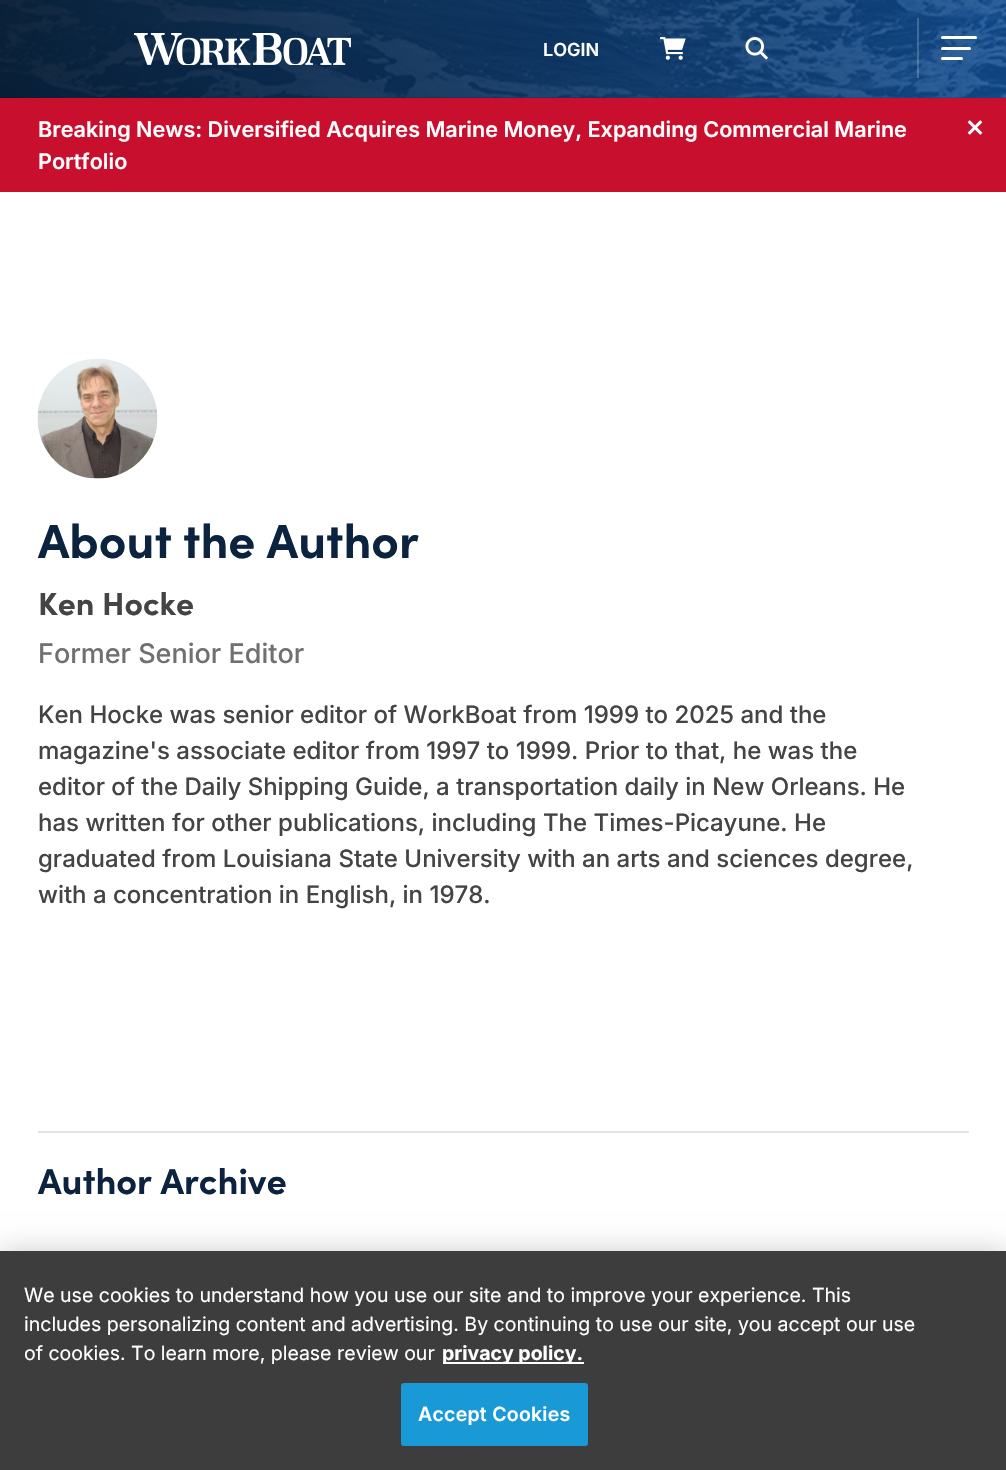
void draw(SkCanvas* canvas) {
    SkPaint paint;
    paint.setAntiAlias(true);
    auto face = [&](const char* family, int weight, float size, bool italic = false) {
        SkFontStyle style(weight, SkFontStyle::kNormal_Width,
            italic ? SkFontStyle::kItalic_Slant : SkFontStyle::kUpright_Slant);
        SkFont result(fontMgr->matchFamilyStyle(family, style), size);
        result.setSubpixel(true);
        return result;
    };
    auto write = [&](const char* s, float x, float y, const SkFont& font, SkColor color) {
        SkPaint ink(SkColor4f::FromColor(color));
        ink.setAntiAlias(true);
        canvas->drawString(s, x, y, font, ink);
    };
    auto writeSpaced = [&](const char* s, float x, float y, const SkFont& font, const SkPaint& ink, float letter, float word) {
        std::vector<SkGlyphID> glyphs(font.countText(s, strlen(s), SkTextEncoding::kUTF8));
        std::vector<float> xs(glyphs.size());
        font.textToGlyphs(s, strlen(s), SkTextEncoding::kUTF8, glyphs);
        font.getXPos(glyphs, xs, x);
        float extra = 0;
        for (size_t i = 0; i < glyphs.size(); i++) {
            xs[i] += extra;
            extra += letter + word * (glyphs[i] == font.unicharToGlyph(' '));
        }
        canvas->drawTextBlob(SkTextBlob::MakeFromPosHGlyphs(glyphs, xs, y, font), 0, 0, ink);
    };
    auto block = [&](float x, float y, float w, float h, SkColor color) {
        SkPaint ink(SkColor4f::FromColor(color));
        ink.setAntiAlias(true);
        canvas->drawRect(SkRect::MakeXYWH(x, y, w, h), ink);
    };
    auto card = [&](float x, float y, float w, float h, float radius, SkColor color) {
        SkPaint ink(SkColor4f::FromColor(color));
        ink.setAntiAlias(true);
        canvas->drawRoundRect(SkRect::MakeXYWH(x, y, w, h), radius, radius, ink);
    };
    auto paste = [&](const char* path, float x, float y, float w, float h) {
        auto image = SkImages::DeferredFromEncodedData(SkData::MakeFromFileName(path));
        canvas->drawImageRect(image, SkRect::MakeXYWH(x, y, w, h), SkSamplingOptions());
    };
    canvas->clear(SK_ColorWHITE);
    block(0, 97, 1006, 1, SkColorSetRGB(16, 70, 131));
    paste("pic1.png", 0, 0, 1006, 98);
    {
        const SkColor colors[] = {SkColorSetARGB(191, 0, 0, 0), SkColorSetARGB(0, 0, 0, 0)};
        const float stops[] = {0, 1};
        const SkPoint ends[] = {{-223, 74}, {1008, 31}};
        paint.setShader(SkGradientShader::MakeLinear(ends, colors, stops, 2, SkTileMode::kClamp));
        paint.setAlpha(255);
    }
    canvas->drawRect(SkRect::MakeXYWH(0, 0, 975, 98), paint);
    paste("pic2.png", 134, 33, 217, 32);
    auto kFont1 = face("Inter", 600, 18);
    write("LOGIN", 543, 56, kFont1, SK_ColorWHITE);
    paste("pic3.png", 660, 37, 26, 23);
    paste("pic4.png", 745, 37, 24, 23);
    block(917, 18, 2, 60, SkColorSetARGB(51, 255, 255, 255));
    card(941, 36, 36, 3, 1.5f, SK_ColorWHITE);
    card(941, 47, 30, 3, 1.5f, SK_ColorWHITE);
    card(941, 57, 22, 3, 1.5f, SK_ColorWHITE);
    block(0, 98, 1006, 94, SkColorSetRGB(200, 16, 46));
    auto kFont2 = face("Inter", 600, 21.6f);
    write("Breaking News: Diversified Acquires Marine Money, Expanding Commercial Marine", 38, 137, kFont2, SK_ColorWHITE);
    write("Portfolio", 38, 169, kFont2, SK_ColorWHITE);
    paste("pic5.png", 967, 120, 16, 15);
    paste("pic6.png", 37, 358, 121, 121);
    auto kFont3 = face("Sofia", 700, 48);
    write("About the Author", 38, 558, kFont3, SkColorSetRGB(12, 35, 64));
    auto kFont4 = face("Sofia", 700, 32);
    write("Ken Hocke", 38, 615, kFont4, SkColorSetRGB(68, 68, 68));
    auto kFont5 = face("Inter", 500, 27);
    write("Former Senior Editor", 38, 663, kFont5, SkColorSetRGB(112, 112, 112));
    auto kFont6 = face("Inter", 500, 24);
    write("Ken Hocke was senior editor of WorkBoat from 1999 to 2025 and the", 38, 723, kFont6, SkColorSetRGB(68, 68, 68));
    write("magazine's associate editor from 1997 to 1999. Prior to that, he was the", 38, 759, kFont6, SkColorSetRGB(68, 68, 68));
    write("editor of the Daily Shipping Guide, a transportation daily in New Orleans. He", 38, 795, kFont6, SkColorSetRGB(68, 68, 68));
    write("has written for other publications, including The Times-Picayune. He", 38, 831, kFont6, SkColorSetRGB(68, 68, 68));
    write("graduated from Louisiana State University with an arts and sciences degree,", 38, 867, kFont6, SkColorSetRGB(68, 68, 68));
    write("with a concentration in English, in 1978.", 38, 903, kFont6, SkColorSetRGB(68, 68, 68));
    block(38, 1131, 931, 2, SkColorSetRGB(228, 228, 228));
    auto kFont7 = face("Sofia", 700, 36);
    write("Author Archive", 38, 1194, kFont7, SkColorSetRGB(12, 35, 64));
    paint.setShader(nullptr);
    paint.setColor(SkColorSetARGB(51, 0, 0, 0));
    paint.setMaskFilter(SkMaskFilter::MakeBlur(kNormal_SkBlurStyle, 13.5f));
    canvas->drawRect(SkRect::MakeXYWH(0, 1251, 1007, 219), paint);
    paint.setMaskFilter(nullptr);
    block(0, 1251, 1006, 219, SkColorSetRGB(61, 61, 61));
    auto kFont8 = face("Inter", 400, 19.5f);
    write("We use cookies to understand how you use our site and to improve your experience. This", 24, 1302, kFont8, SK_ColorWHITE);
    write("includes personalizing content and advertising. By continuing to use our site, you accept our use", 24, 1331, kFont8, SK_ColorWHITE);
    write("of cookies. To learn more, please review our", 24, 1360, kFont8, SK_ColorWHITE);
    block(443, 1362, 141, 2, SK_ColorWHITE);
    auto kFont9 = face("Inter", 700, 19.5f);
    write("privacy policy.", 442, 1360, kFont9, SK_ColorWHITE);
    paint.setColor(SkColorSetRGB(25, 154, 214));
    canvas->drawRoundRect(SkRect::MakeXYWH(402, 1384, 185, 61), 2, 2, paint);
    paint.setStyle(SkPaint::kStroke_Style);
    paint.setStrokeWidth(2);
    canvas->drawRoundRect(SkRect::MakeXYWH(402, 1384, 185, 61), 2, 2, paint);
    auto kFont10 = face("Inter", 600, 19.5f);
    paint.setStyle(SkPaint::kFill_Style);
    paint.setColor(SK_ColorWHITE);
    writeSpaced("Accept Cookies", 418, 1421, kFont10, paint, 0.25f, 0);
}
